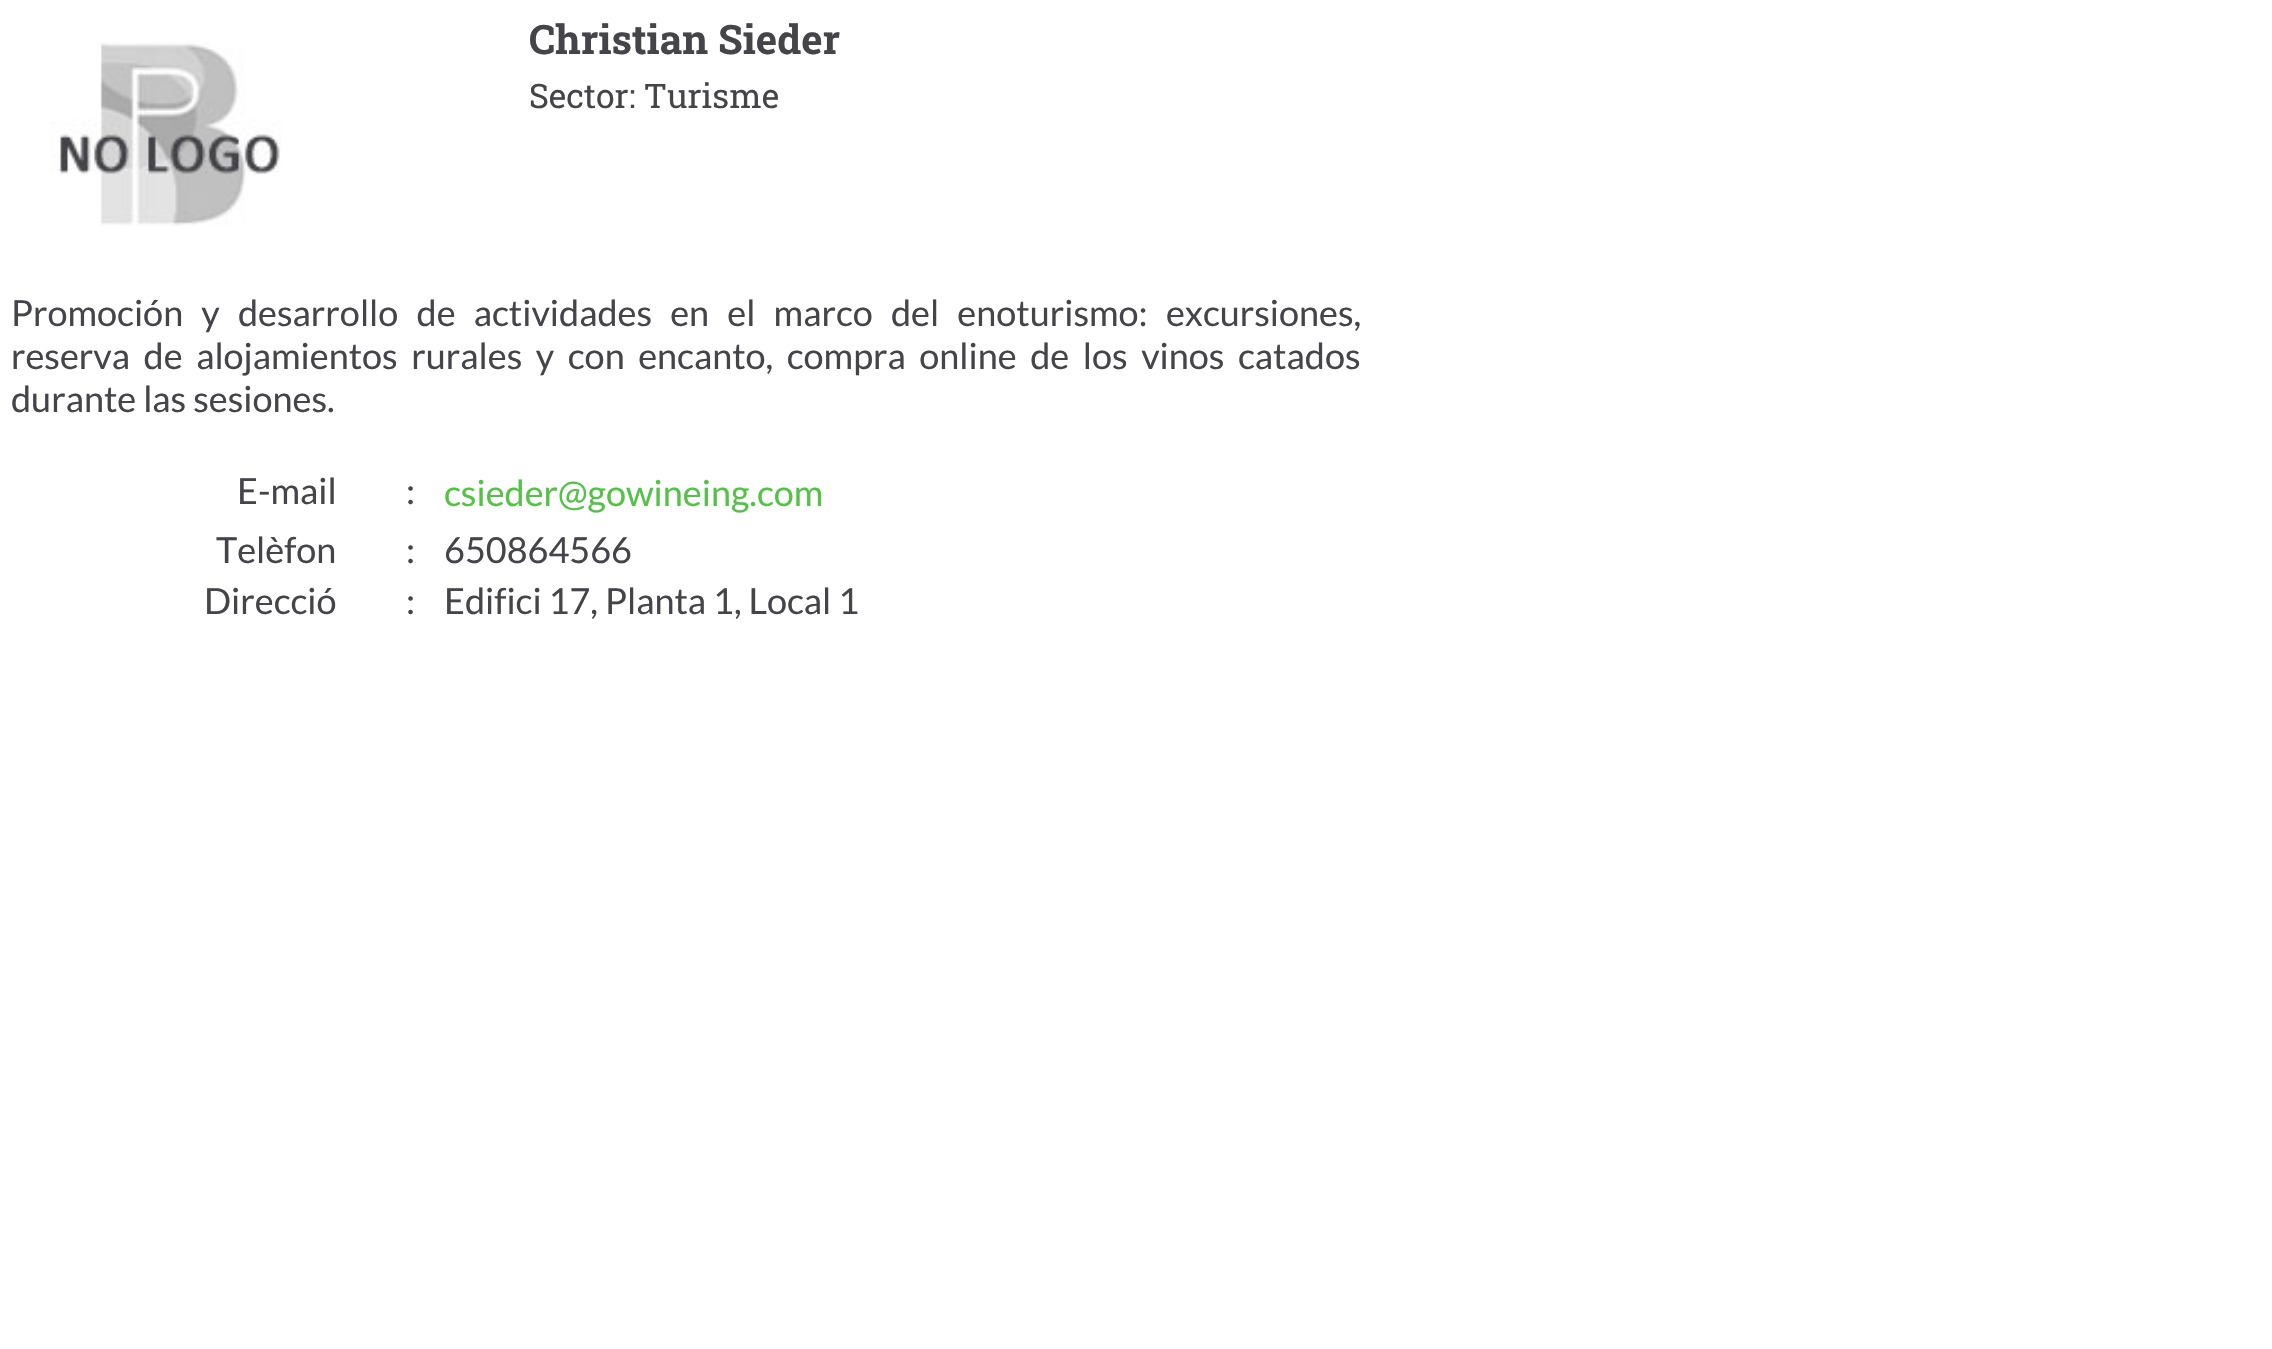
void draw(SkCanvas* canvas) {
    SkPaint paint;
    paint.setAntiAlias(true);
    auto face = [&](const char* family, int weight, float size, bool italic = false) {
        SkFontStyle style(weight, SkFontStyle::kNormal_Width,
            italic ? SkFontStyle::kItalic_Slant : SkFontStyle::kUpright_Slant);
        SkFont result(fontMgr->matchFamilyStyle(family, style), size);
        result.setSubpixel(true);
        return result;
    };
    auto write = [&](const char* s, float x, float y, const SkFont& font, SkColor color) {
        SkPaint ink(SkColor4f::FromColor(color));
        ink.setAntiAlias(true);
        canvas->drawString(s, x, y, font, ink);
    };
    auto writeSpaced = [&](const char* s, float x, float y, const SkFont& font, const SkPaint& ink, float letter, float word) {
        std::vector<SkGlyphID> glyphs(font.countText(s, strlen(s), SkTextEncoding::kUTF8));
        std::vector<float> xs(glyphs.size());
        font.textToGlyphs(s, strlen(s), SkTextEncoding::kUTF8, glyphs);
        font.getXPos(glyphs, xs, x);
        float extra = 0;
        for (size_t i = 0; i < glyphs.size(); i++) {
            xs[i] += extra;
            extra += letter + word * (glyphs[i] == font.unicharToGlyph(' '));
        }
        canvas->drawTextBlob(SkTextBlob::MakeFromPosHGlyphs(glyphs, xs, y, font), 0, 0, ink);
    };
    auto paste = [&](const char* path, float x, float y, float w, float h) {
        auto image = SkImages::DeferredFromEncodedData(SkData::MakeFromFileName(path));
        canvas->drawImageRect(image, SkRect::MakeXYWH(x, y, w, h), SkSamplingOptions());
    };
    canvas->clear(SK_ColorWHITE);
    paste("pic1.png", 50, 42, 231, 184);
    auto kFont1 = face("Roboto Slab", 700, 40.5f);
    write("Christian Sieder", 529, 54, kFont1, SkColorSetRGB(69, 68, 73));
    auto kFont2 = face("Roboto Slab", 400, 33.75f);
    write("Sector: Turisme", 529, 108, kFont2, SkColorSetRGB(69, 68, 73));
    auto kFont3 = face("Lato", 400, 36);
    paint.setColor(SkColorSetRGB(69, 68, 73));
    writeSpaced("Promoción y desarrollo de actividades en el marco del enoturismo: excursiones,", 11, 326, kFont3, paint, 0, 11.25f);
    writeSpaced("reserva de alojamientos rurales y con encanto, compra online de los vinos catados", 11, 369, kFont3, paint, 0, 6.6f);
    write("durante las sesiones.", 11, 412, kFont3, SkColorSetRGB(69, 68, 73));
    write("E-mail", 237, 504, kFont3, SkColorSetRGB(69, 68, 73));
    write(":", 406, 504, kFont3, SkColorSetRGB(69, 68, 73));
    write("csieder@gowineing.com", 444, 506, kFont3, SkColorSetRGB(84, 193, 71));
    write("Telèfon", 216, 563, kFont3, SkColorSetRGB(69, 68, 73));
    write(":", 406, 563, kFont3, SkColorSetRGB(69, 68, 73));
    write("650864566", 444, 563, kFont3, SkColorSetRGB(69, 68, 73));
    write("Direcció", 204, 614, kFont3, SkColorSetRGB(69, 68, 73));
    write(":", 406, 614, kFont3, SkColorSetRGB(69, 68, 73));
    write("Edifici 17, Planta 1, Local 1", 444, 614, kFont3, SkColorSetRGB(69, 68, 73));
}
